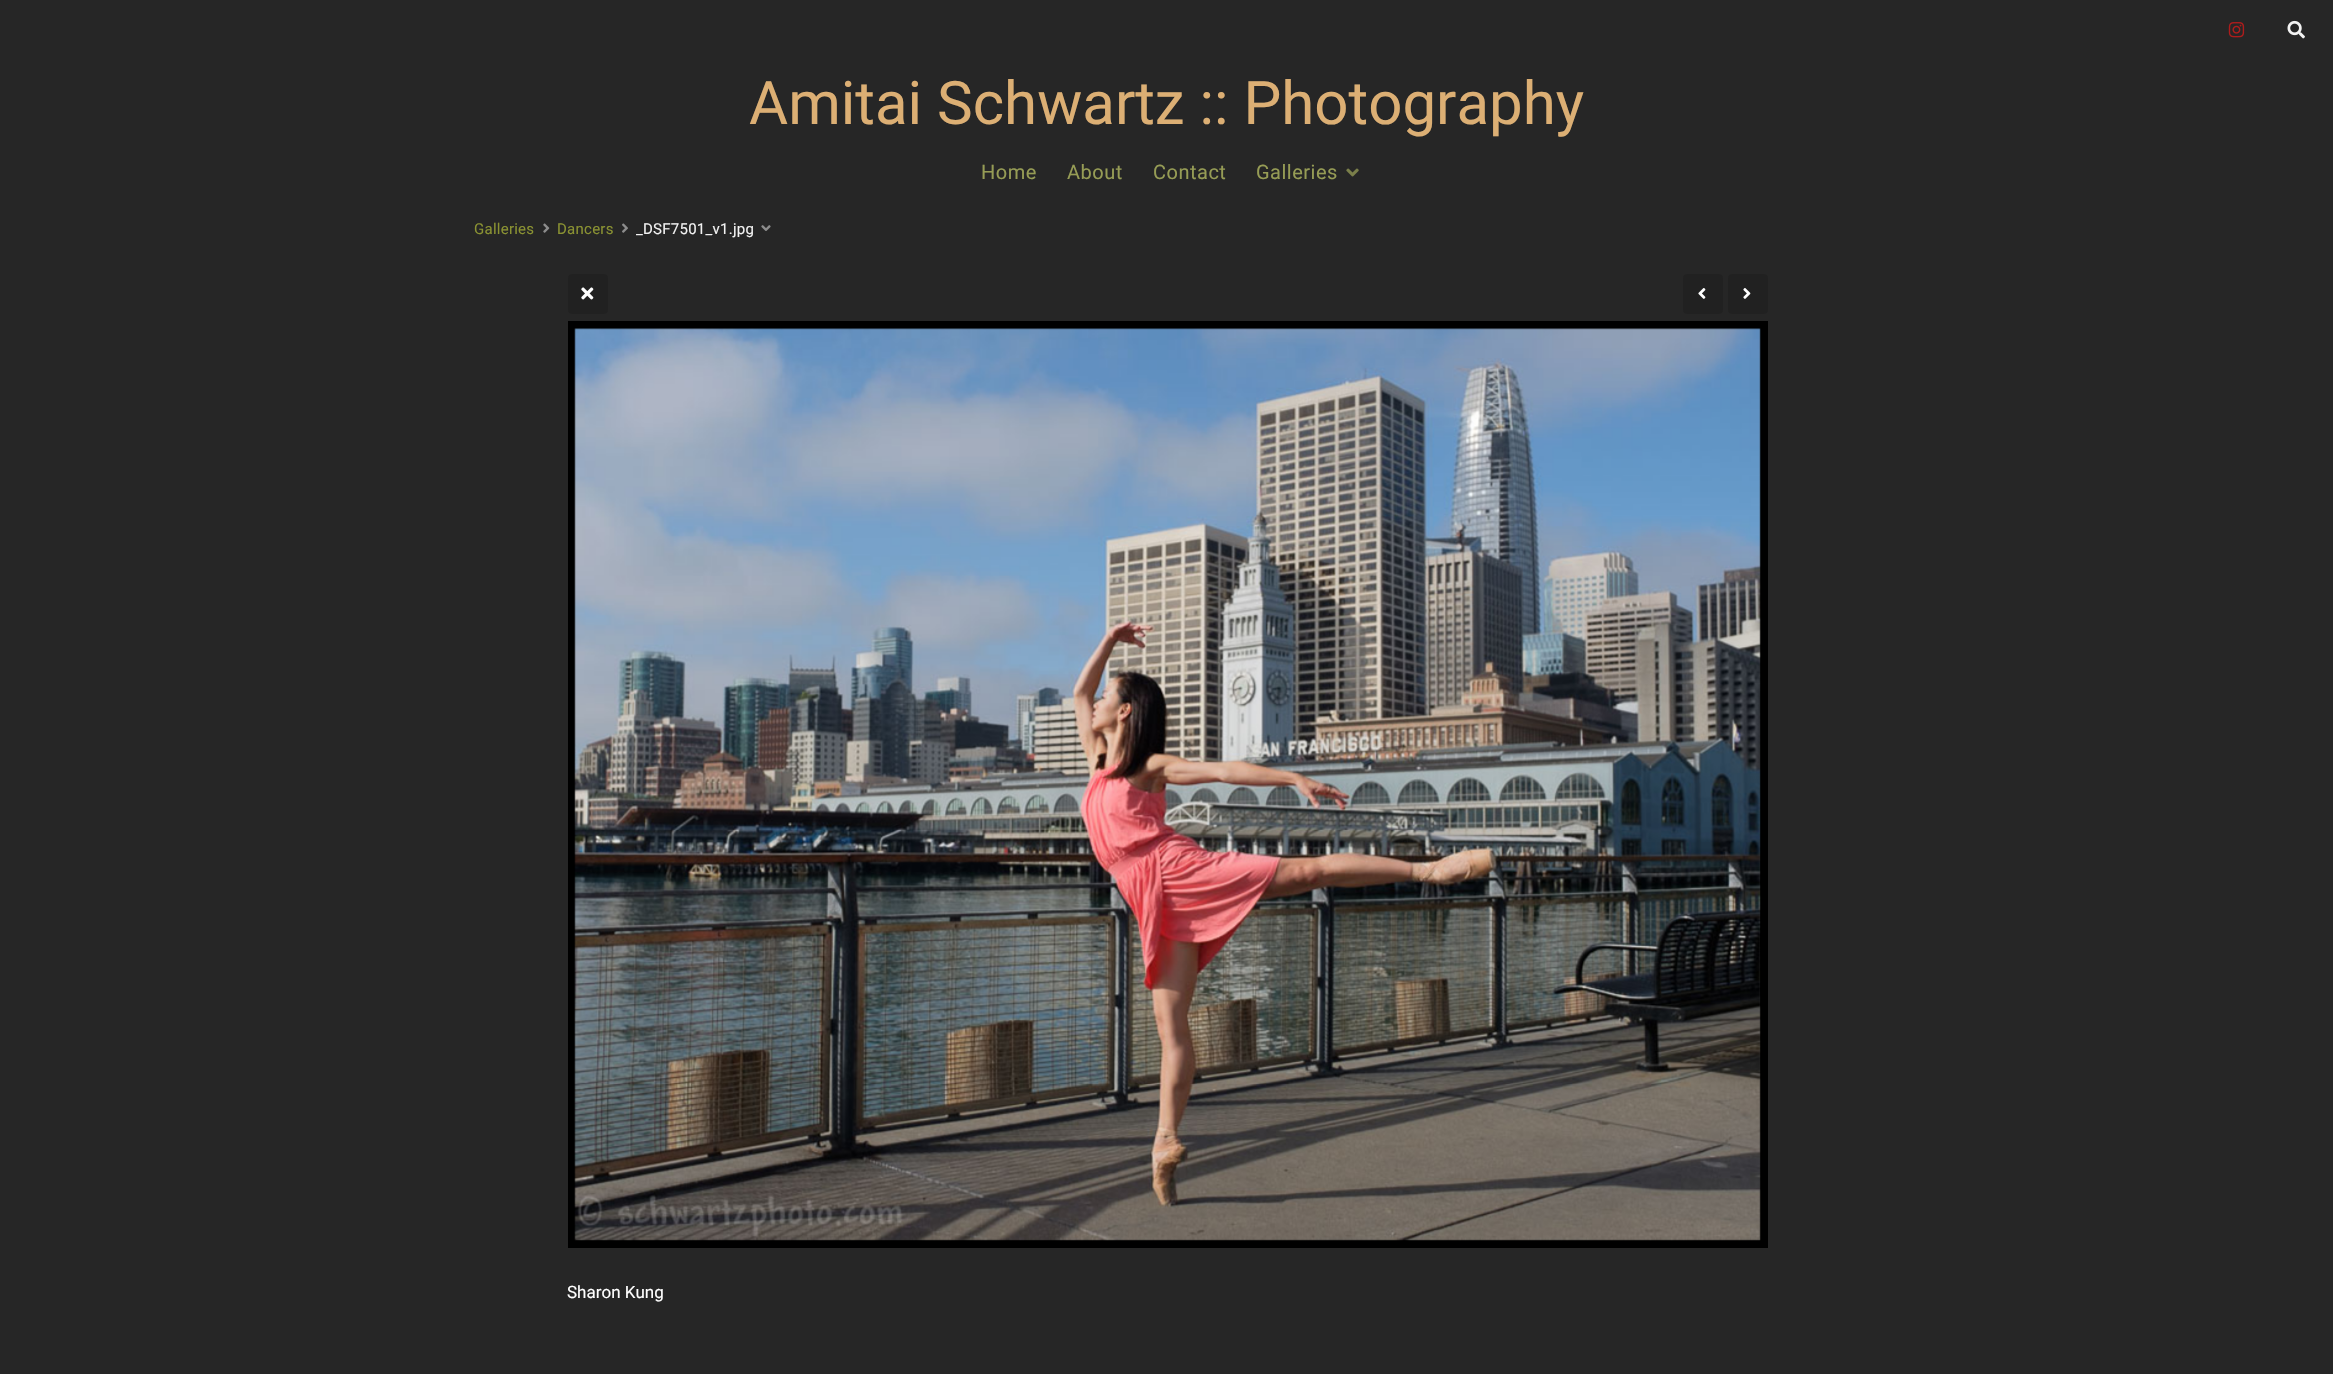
void draw(SkCanvas* canvas) {
    SkPaint paint;
    paint.setAntiAlias(true);
    auto face = [&](const char* family, int weight, float size, bool italic = false) {
        SkFontStyle style(weight, SkFontStyle::kNormal_Width,
            italic ? SkFontStyle::kItalic_Slant : SkFontStyle::kUpright_Slant);
        SkFont result(fontMgr->matchFamilyStyle(family, style), size);
        result.setSubpixel(true);
        return result;
    };
    auto write = [&](const char* s, float x, float y, const SkFont& font, SkColor color) {
        SkPaint ink(SkColor4f::FromColor(color));
        ink.setAntiAlias(true);
        canvas->drawString(s, x, y, font, ink);
    };
    auto writeSpaced = [&](const char* s, float x, float y, const SkFont& font, const SkPaint& ink, float letter, float word) {
        std::vector<SkGlyphID> glyphs(font.countText(s, strlen(s), SkTextEncoding::kUTF8));
        std::vector<float> xs(glyphs.size());
        font.textToGlyphs(s, strlen(s), SkTextEncoding::kUTF8, glyphs);
        font.getXPos(glyphs, xs, x);
        float extra = 0;
        for (size_t i = 0; i < glyphs.size(); i++) {
            xs[i] += extra;
            extra += letter + word * (glyphs[i] == font.unicharToGlyph(' '));
        }
        canvas->drawTextBlob(SkTextBlob::MakeFromPosHGlyphs(glyphs, xs, y, font), 0, 0, ink);
    };
    auto card = [&](float x, float y, float w, float h, float radius, SkColor color) {
        SkPaint ink(SkColor4f::FromColor(color));
        ink.setAntiAlias(true);
        canvas->drawRoundRect(SkRect::MakeXYWH(x, y, w, h), radius, radius, ink);
    };
    auto paste = [&](const char* path, float x, float y, float w, float h) {
        auto image = SkImages::DeferredFromEncodedData(SkData::MakeFromFileName(path));
        canvas->drawImageRect(image, SkRect::MakeXYWH(x, y, w, h), SkSamplingOptions());
    };
    canvas->clear(SkColorSetRGB(38, 38, 38));
    paste("pic1.png", 2228, 22, 17, 16);
    paste("pic2.png", 2287, 20, 18, 19);
    auto kFont1 = face("Roboto", 400, 60);
    write("Amitai Schwartz :: Photography", 749, 124, kFont1, SkColorSetRGB(220, 175, 116));
    auto kFont2 = face("Roboto", 400, 20);
    paint.setColor(SkColorSetRGB(150, 156, 85));
    writeSpaced("Home", 981, 179, kFont2, paint, 0.5f, 0);
    writeSpaced("About", 1067, 179, kFont2, paint, 0.5f, 0);
    writeSpaced("Contact", 1153, 179, kFont2, paint, 0.5f, 0);
    writeSpaced("Galleries", 1256, 179, kFont2, paint, 0.5f, 0);
    paste("pic3.png", 1346, 168, 13, 9);
    auto kFont3 = face("Roboto", 400, 15);
    paint.setColor(SkColorSetRGB(138, 146, 50));
    writeSpaced("Galleries", 474, 234, kFont3, paint, 0.25f, 0);
    paste("pic4.png", 543, 223, 7, 10);
    writeSpaced("Dancers", 557, 234, kFont3, paint, 0.25f, 0);
    paste("pic5.png", 622, 223, 6, 10);
    paint.setColor(SkColorSetRGB(242, 242, 242));
    writeSpaced("_DSF7501_v1.jpg", 636, 234, kFont3, paint, 0.25f, 0);
    paste("pic6.png", 761, 225, 10, 6);
    card(568, 274, 40, 40, 4, SkColorSetRGB(33, 33, 33));
    paste("pic7.png", 581, 287, 13, 13);
    card(1683, 274, 40, 40, 4, SkColorSetRGB(33, 33, 33));
    paste("pic8.png", 1698, 288, 8, 11);
    card(1728, 274, 40, 40, 4, SkColorSetRGB(33, 33, 33));
    paste("pic9.png", 1743, 288, 8, 11);
    paint.setStyle(SkPaint::kStroke_Style);
    paint.setStrokeWidth(8);
    paint.setColor(SK_ColorBLACK);
    canvas->drawRect(SkRect::MakeXYWH(572, 325, 1192, 919), paint);
    paste("pic10.png", 574, 328, 1187, 913);
    auto kFont4 = face("Roboto", 400, 17);
    write("Sharon Kung", 567, 1298, kFont4, SK_ColorWHITE);
}
